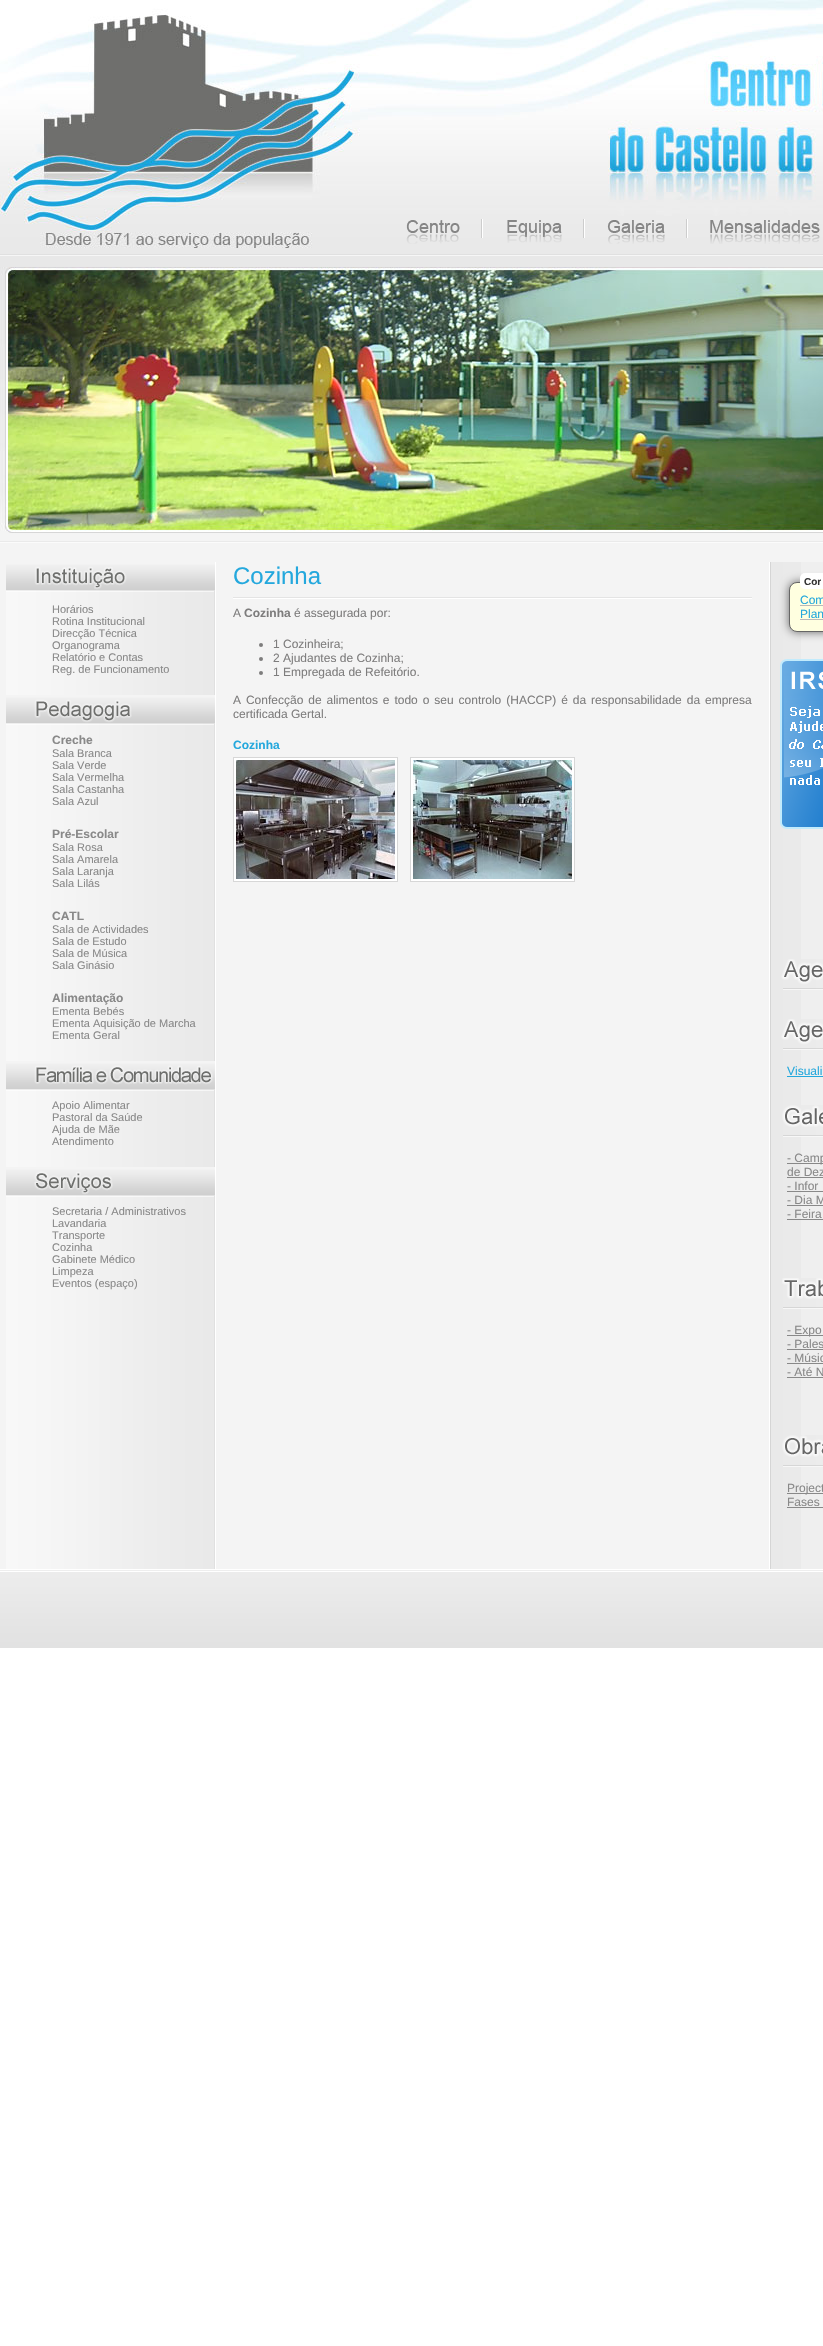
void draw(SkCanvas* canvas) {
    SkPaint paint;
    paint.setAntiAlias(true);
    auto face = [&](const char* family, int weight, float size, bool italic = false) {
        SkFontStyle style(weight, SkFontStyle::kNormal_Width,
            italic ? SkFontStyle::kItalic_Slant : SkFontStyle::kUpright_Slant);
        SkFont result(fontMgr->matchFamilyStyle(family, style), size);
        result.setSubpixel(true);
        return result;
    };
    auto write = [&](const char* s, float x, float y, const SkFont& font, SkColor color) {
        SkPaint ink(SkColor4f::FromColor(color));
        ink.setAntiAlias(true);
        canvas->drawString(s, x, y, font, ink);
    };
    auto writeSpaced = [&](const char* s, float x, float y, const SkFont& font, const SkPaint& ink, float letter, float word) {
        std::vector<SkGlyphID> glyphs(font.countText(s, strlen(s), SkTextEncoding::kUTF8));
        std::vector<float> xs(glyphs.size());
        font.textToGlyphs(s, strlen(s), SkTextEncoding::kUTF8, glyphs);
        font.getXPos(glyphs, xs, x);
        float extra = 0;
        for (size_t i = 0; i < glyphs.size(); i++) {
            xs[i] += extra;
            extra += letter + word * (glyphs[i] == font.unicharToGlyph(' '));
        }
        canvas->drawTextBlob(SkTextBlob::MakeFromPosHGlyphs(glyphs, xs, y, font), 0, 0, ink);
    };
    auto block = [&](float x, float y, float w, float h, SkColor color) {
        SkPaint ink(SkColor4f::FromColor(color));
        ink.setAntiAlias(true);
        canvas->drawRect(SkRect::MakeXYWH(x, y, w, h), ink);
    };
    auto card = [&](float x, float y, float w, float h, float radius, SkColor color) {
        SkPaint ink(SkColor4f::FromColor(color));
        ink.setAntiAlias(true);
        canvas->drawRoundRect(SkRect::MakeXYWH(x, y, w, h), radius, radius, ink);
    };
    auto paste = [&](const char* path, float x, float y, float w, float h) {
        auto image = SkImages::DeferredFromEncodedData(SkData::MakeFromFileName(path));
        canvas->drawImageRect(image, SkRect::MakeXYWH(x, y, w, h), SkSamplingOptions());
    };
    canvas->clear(SK_ColorWHITE);
    block(0, 533, 823, 1036, SkColorSetRGB(244, 244, 244));
    paste("pic1.png", 0, 0, 823, 248);
    paste("pic2.png", 406, 219, 77, 25);
    paste("pic3.png", 507, 219, 78, 24);
    paste("pic4.png", 607, 219, 81, 25);
    paste("pic5.png", 710, 220, 110, 24);
    paste("pic6.png", 0, 248, 823, 19);
    paste("pic7.png", 0, 267, 823, 266);
    paste("pic8.png", 8, 270, 815, 260);
    paste("pic9.png", 8, 270, 815, 260);
    paste("pic10.png", 0, 541, 823, 2);
    paste("pic11.png", 6, 562, 210, 1007);
    paste("pic12.png", 6, 562, 209, 30);
    auto kFont1 = face("Liberation Sans", 400, 11);
    write("Horários", 52, 613, kFont1, SkColorSetRGB(137, 137, 137));
    write("Rotina Institucional", 52, 625, kFont1, SkColorSetRGB(137, 137, 137));
    write("Direcção Técnica", 52, 637, kFont1, SkColorSetRGB(137, 137, 137));
    write("Organograma", 52, 649, kFont1, SkColorSetRGB(137, 137, 137));
    write("Relatório e Contas", 52, 661, kFont1, SkColorSetRGB(137, 137, 137));
    write("Reg. de Funcionamento", 52, 673, kFont1, SkColorSetRGB(137, 137, 137));
    paste("pic13.png", 6, 695, 209, 30);
    auto kFont2 = face("Liberation Sans", 700, 12);
    write("Creche", 52, 744, kFont2, SkColorSetRGB(137, 137, 137));
    write("Sala Branca", 52, 757, kFont1, SkColorSetRGB(137, 137, 137));
    write("Sala Verde", 52, 769, kFont1, SkColorSetRGB(137, 137, 137));
    write("Sala Vermelha", 52, 781, kFont1, SkColorSetRGB(137, 137, 137));
    write("Sala Castanha", 52, 793, kFont1, SkColorSetRGB(137, 137, 137));
    write("Sala Azul", 52, 805, kFont1, SkColorSetRGB(137, 137, 137));
    write("Pré-Escolar", 52, 838, kFont2, SkColorSetRGB(137, 137, 137));
    write("Sala Rosa", 52, 851, kFont1, SkColorSetRGB(137, 137, 137));
    write("Sala Amarela", 52, 863, kFont1, SkColorSetRGB(137, 137, 137));
    write("Sala Laranja", 52, 875, kFont1, SkColorSetRGB(137, 137, 137));
    write("Sala Lilás", 52, 887, kFont1, SkColorSetRGB(137, 137, 137));
    write("CATL", 52, 920, kFont2, SkColorSetRGB(137, 137, 137));
    write("Sala de Actividades", 52, 933, kFont1, SkColorSetRGB(137, 137, 137));
    write("Sala de Estudo", 52, 945, kFont1, SkColorSetRGB(137, 137, 137));
    write("Sala de Música", 52, 957, kFont1, SkColorSetRGB(137, 137, 137));
    write("Sala Ginásio", 52, 969, kFont1, SkColorSetRGB(137, 137, 137));
    write("Alimentação", 52, 1002, kFont2, SkColorSetRGB(137, 137, 137));
    write("Ementa Bebés", 52, 1015, kFont1, SkColorSetRGB(137, 137, 137));
    write("Ementa Aquisição de Marcha", 52, 1027, kFont1, SkColorSetRGB(137, 137, 137));
    write("Ementa Geral", 52, 1039, kFont1, SkColorSetRGB(137, 137, 137));
    paste("pic14.png", 6, 1061, 209, 30);
    write("Apoio Alimentar", 52, 1109, kFont1, SkColorSetRGB(137, 137, 137));
    write("Pastoral da Saúde", 52, 1121, kFont1, SkColorSetRGB(137, 137, 137));
    write("Ajuda de Mãe", 52, 1133, kFont1, SkColorSetRGB(137, 137, 137));
    write("Atendimento", 52, 1145, kFont1, SkColorSetRGB(137, 137, 137));
    paste("pic15.png", 6, 1167, 209, 30);
    write("Secretaria / Administrativos", 52, 1215, kFont1, SkColorSetRGB(137, 137, 137));
    write("Lavandaria", 52, 1227, kFont1, SkColorSetRGB(137, 137, 137));
    write("Transporte", 52, 1239, kFont1, SkColorSetRGB(137, 137, 137));
    write("Cozinha", 52, 1251, kFont1, SkColorSetRGB(137, 137, 137));
    write("Gabinete Médico", 52, 1263, kFont1, SkColorSetRGB(137, 137, 137));
    write("Limpeza", 52, 1275, kFont1, SkColorSetRGB(137, 137, 137));
    write("Eventos (espaço)", 52, 1287, kFont1, SkColorSetRGB(137, 137, 137));
    auto kFont3 = face("Liberation Sans", 400, 24);
    write("Cozinha", 233, 584, kFont3, SkColorSetRGB(36, 168, 221));
    block(233, 597, 519, 1, SkColorSetRGB(228, 228, 228));
    block(233, 598, 519, 1, SK_ColorWHITE);
    auto kFont4 = face("Liberation Sans", 400, 12);
    write("A", 233, 617, kFont4, SkColorSetRGB(126, 125, 125));
    write("Cozinha", 244, 617, kFont2, SkColorSetRGB(126, 125, 125));
    write("é assegurada por:", 294, 617, kFont4, SkColorSetRGB(126, 125, 125));
    paint.setColor(SkColorSetRGB(126, 125, 125));
    canvas->drawCircle(261, 645, 2, paint);
    write("1 Cozinheira;", 273, 648, kFont4, SkColorSetRGB(126, 125, 125));
    canvas->drawCircle(261, 659, 2, paint);
    write("2 Ajudantes de Cozinha;", 273, 662, kFont4, SkColorSetRGB(126, 125, 125));
    canvas->drawCircle(261, 673, 2, paint);
    write("1 Empregada de Refeitório.", 273, 676, kFont4, SkColorSetRGB(126, 125, 125));
    writeSpaced("A Confecção de alimentos e todo o seu controlo (HACCP) é da responsabilidade da empresa", 233, 704, kFont4, paint, 0, 1.6f);
    write("certificada Gertal.", 233, 718, kFont4, SkColorSetRGB(126, 125, 125));
    write("Cozinha", 233, 749, kFont2, SkColorSetRGB(36, 168, 221));
    paint.setStyle(SkPaint::kStroke_Style);
    paint.setStrokeWidth(1);
    paint.setColor(SkColorSetRGB(215, 215, 215));
    canvas->drawRect(SkRect::MakeXYWH(233.5f, 757.5f, 164, 124), paint);
    paint.setStrokeWidth(2);
    paint.setColor(SK_ColorWHITE);
    canvas->drawRect(SkRect::MakeXYWH(235, 759, 161, 121), paint);
    paste("pic16.png", 236, 760, 159, 119);
    paint.setStrokeWidth(1);
    paint.setColor(SkColorSetRGB(215, 215, 215));
    canvas->drawRect(SkRect::MakeXYWH(410.5f, 757.5f, 164, 124), paint);
    paint.setStrokeWidth(2);
    paint.setColor(SK_ColorWHITE);
    canvas->drawRect(SkRect::MakeXYWH(412, 759, 161, 121), paint);
    paste("pic17.png", 413, 760, 159, 119);
    block(801, 562, 22, 1007, SkColorSetRGB(239, 239, 239));
    paste("pic18.png", 769, 562, 32, 1007);
    paint.setStyle(SkPaint::kFill_Style);
    paint.setColor(SkColorSetRGB(102, 102, 102));
    paint.setMaskFilter(SkMaskFilter::MakeBlur(kNormal_SkBlurStyle, 5));
    canvas->drawRoundRect(SkRect::MakeXYWH(789, 582, 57, 50), 8, 8, paint);
    paint.setMaskFilter(nullptr);
    paint.setColor(SkColorSetRGB(255, 255, 224));
    canvas->drawRoundRect(SkRect::MakeXYWH(789.5f, 582.5f, 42, 49), 7.5f, 7.5f, paint);
    paint.setStyle(SkPaint::kStroke_Style);
    paint.setStrokeWidth(1);
    paint.setColor(SkColorSetRGB(102, 102, 102));
    canvas->drawRoundRect(SkRect::MakeXYWH(789.5f, 582.5f, 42, 49), 7.5f, 7.5f, paint);
    card(800, 573, 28, 16, 5, SK_ColorWHITE);
    auto kFont5 = face("Liberation Sans", 700, 10);
    write("Cor", 804, 585, kFont5, SkColorSetRGB(51, 51, 51));
    write("Com", 800, 604, kFont4, SkColorSetRGB(36, 168, 221));
    block(800, 605, 23, 1, SkColorSetRGB(186, 185, 185));
    write("Plan", 800, 618, kFont4, SkColorSetRGB(36, 168, 221));
    block(800, 619, 23, 1, SkColorSetRGB(186, 185, 185));
    paste("pic19.png", 780, 659, 43, 170);
    paste("pic20.png", 781, 959, 42, 31);
    paste("pic20.png", 781, 1019, 42, 31);
    write("Visuali", 787, 1075, kFont4, SkColorSetRGB(36, 168, 221));
    block(787, 1076, 36, 1, SkColorSetRGB(36, 168, 221));
    paste("pic21.png", 782, 1105, 41, 32);
    block(787, 1163, 36, 1, SkColorSetRGB(137, 137, 137));
    write("- Camp", 787, 1162, kFont4, SkColorSetRGB(137, 137, 137));
    write("de Dez", 787, 1176, kFont4, SkColorSetRGB(137, 137, 137));
    block(787, 1177, 36, 1, SkColorSetRGB(137, 137, 137));
    write("- Infor", 787, 1190, kFont4, SkColorSetRGB(137, 137, 137));
    block(787, 1191, 36, 1, SkColorSetRGB(137, 137, 137));
    write("- Dia M", 787, 1204, kFont4, SkColorSetRGB(137, 137, 137));
    block(787, 1205, 36, 1, SkColorSetRGB(137, 137, 137));
    write("- Feira", 787, 1218, kFont4, SkColorSetRGB(137, 137, 137));
    block(787, 1219, 36, 1, SkColorSetRGB(137, 137, 137));
    paste("pic22.png", 782, 1278, 41, 31);
    block(787, 1335, 36, 1, SkColorSetRGB(137, 137, 137));
    write("- Expo", 787, 1334, kFont4, SkColorSetRGB(137, 137, 137));
    write("- Pales", 787, 1348, kFont4, SkColorSetRGB(137, 137, 137));
    block(787, 1349, 36, 1, SkColorSetRGB(137, 137, 137));
    write("- Músic", 787, 1362, kFont4, SkColorSetRGB(137, 137, 137));
    block(787, 1363, 36, 1, SkColorSetRGB(137, 137, 137));
    write("- Até N", 787, 1376, kFont4, SkColorSetRGB(137, 137, 137));
    block(787, 1377, 36, 1, SkColorSetRGB(137, 137, 137));
    paste("pic23.png", 782, 1435, 41, 32);
    block(787, 1493, 36, 1, SkColorSetRGB(137, 137, 137));
    write("Project", 787, 1492, kFont4, SkColorSetRGB(137, 137, 137));
    write("Fases", 787, 1506, kFont4, SkColorSetRGB(137, 137, 137));
    block(787, 1507, 36, 1, SkColorSetRGB(137, 137, 137));
    paste("pic24.png", 0, 1569, 823, 79);
}
